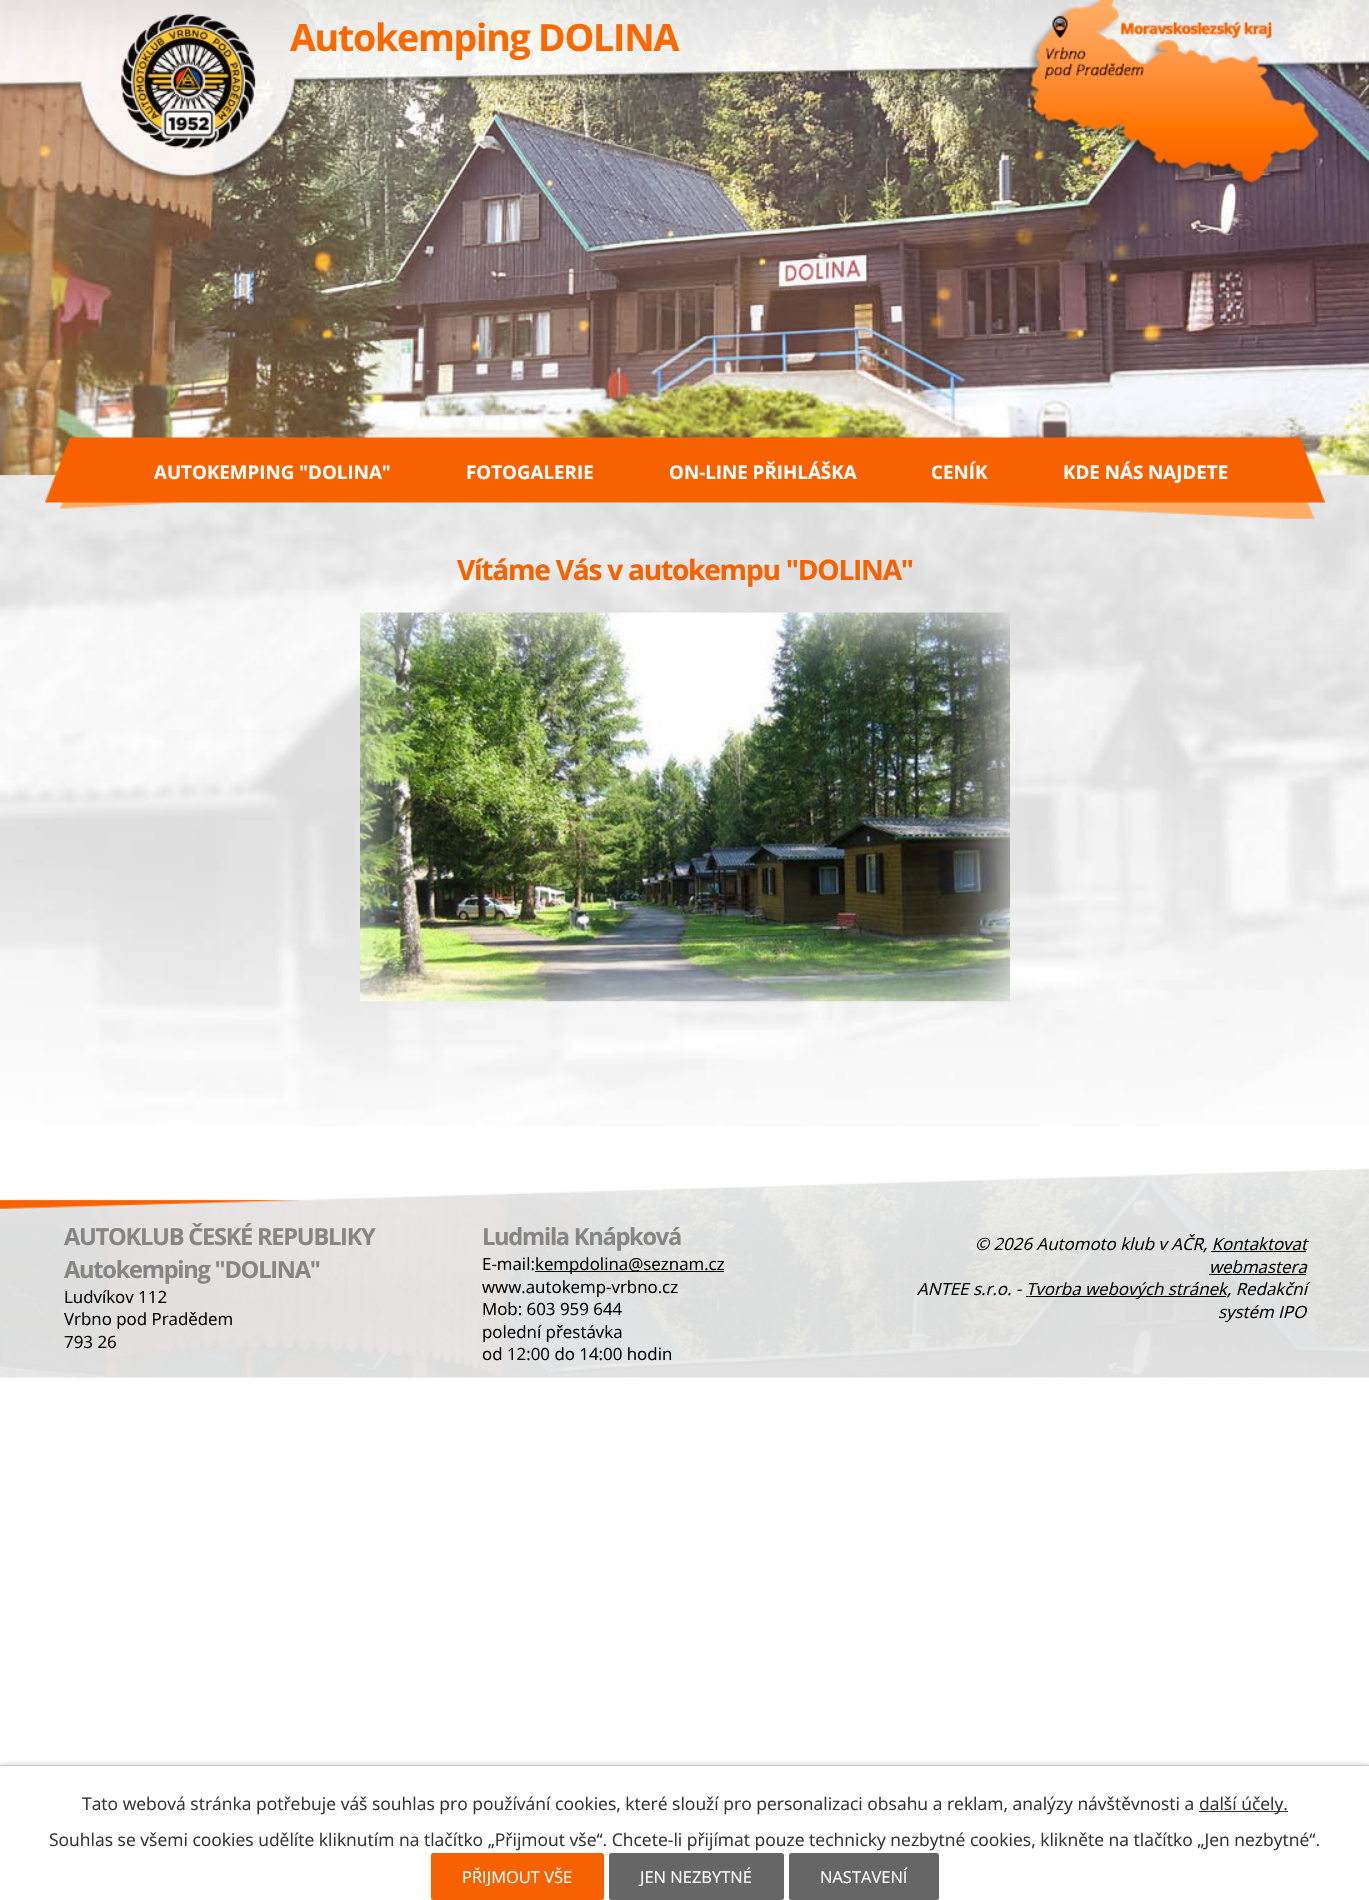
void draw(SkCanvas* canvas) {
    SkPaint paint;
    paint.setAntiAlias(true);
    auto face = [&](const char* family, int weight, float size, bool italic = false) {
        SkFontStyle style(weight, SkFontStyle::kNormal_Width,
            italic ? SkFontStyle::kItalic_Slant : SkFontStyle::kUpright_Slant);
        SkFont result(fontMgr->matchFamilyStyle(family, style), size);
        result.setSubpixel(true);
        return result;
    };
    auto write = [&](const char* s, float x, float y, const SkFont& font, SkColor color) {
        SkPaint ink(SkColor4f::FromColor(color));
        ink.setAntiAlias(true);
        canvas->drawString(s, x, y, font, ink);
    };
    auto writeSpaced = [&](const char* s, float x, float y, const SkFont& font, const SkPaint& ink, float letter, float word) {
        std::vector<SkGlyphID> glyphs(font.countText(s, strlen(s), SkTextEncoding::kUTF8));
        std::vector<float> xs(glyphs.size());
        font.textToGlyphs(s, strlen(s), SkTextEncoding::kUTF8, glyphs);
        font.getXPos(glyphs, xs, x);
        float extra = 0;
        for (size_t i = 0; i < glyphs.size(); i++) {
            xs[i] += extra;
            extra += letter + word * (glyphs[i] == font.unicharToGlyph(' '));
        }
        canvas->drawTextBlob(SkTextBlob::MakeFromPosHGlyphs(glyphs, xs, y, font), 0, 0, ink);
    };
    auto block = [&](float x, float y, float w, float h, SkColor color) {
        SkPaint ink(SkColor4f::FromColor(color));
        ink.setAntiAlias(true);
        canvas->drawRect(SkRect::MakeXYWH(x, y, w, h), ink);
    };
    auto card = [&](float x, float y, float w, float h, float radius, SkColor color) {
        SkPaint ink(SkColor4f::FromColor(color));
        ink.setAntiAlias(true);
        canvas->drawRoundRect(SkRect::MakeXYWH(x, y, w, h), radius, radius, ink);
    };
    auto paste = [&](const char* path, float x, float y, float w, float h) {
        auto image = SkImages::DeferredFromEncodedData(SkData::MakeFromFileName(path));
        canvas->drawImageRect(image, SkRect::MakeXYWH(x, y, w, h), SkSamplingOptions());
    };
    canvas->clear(SK_ColorWHITE);
    paste("pic1.png", 0, 0, 1369, 1126);
    paste("pic2.png", 121, 13, 135, 136);
    auto kFont1 = face("Open Sans", 700, 37.5f);
    paint.setColor(SkColorSetRGB(250, 104, 0));
    writeSpaced("Autokemping DOLINA", 290, 51, kFont1, paint, -1.25f, 0);
    paste("pic3.png", 1024, 0, 295, 189);
    paste("pic4.png", 45, 437, 1280, 82);
    auto kFont2 = face("Open Sans", 700, 18.75f);
    write("AUTOKEMPING \"DOLINA\"", 154, 479, kFont2, SK_ColorWHITE);
    write("FOTOGALERIE", 466, 479, kFont2, SK_ColorWHITE);
    write("ON-LINE PŘIHLÁŠKA", 669, 479, kFont2, SK_ColorWHITE);
    write("CENÍK", 931, 479, kFont2, SK_ColorWHITE);
    write("KDE NÁS NAJDETE", 1063, 479, kFont2, SK_ColorWHITE);
    auto kFont3 = face("Open Sans", 700, 28.1f);
    paint.setColor(SkColorSetRGB(247, 97, 0));
    writeSpaced("Vítáme Vás v autokempu \"DOLINA\"", 457, 580, kFont3, paint, -1.25f, 0);
    paste("pic5.png", 360, 612, 650, 390);
    paste("pic6.png", 0, 1168, 1369, 210);
    auto kFont4 = face("Open Sans", 700, 23.6f);
    paint.setColor(SkColorSetRGB(134, 134, 134));
    writeSpaced("AUTOKLUB ČESKÉ REPUBLIKY", 64, 1245, kFont4, paint, -1.25f, 0);
    writeSpaced("Autokemping \"DOLINA\"", 64, 1278, kFont4, paint, -1.25f, 0);
    auto kFont5 = face("Open Sans", 400, 16.9f);
    write("Ludvíkov 112", 64, 1303, kFont5, SK_ColorBLACK);
    write("Vrbno pod Pradědem", 64, 1325, kFont5, SK_ColorBLACK);
    write("793 26", 64, 1348, kFont5, SK_ColorBLACK);
    writeSpaced("Ludmila Knápková", 482, 1245, kFont4, paint, -1.25f, 0);
    write("E-mail:", 482, 1270, kFont5, SK_ColorBLACK);
    block(535, 1271, 189, 1, SK_ColorBLACK);
    write("kempdolina@seznam.cz", 535, 1270, kFont5, SK_ColorBLACK);
    write("www.autokemp-vrbno.cz", 482, 1293, kFont5, SK_ColorBLACK);
    write("Mob: 603 959 644", 482, 1315, kFont5, SK_ColorBLACK);
    write("polední přestávka", 482, 1338, kFont5, SK_ColorBLACK);
    write("od 12:00 do 14:00 hodin", 482, 1360, kFont5, SK_ColorBLACK);
    auto kFont6 = face("Open Sans", 400, 16.9f, true);
    write("© 2026 Automoto klub v AČR, Kontaktovat", 975, 1250, kFont6, SK_ColorBLACK);
    write("webmastera", 1209, 1273, kFont6, SK_ColorBLACK);
    block(1211, 1251, 95, 1, SK_ColorBLACK);
    block(1209, 1274, 97, 1, SK_ColorBLACK);
    write("ANTEE s.r.o. -", 917, 1295, kFont6, SK_ColorBLACK);
    block(1026, 1296, 200, 1, SK_ColorBLACK);
    write("Tvorba webových stránek, Redakční", 1026, 1295, kFont6, SK_ColorBLACK);
    write("systém IPO", 1218, 1318, kFont6, SK_ColorBLACK);
    canvas->save();
    canvas->clipRect(SkRect::MakeXYWH(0, 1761, 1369, 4));
    paint.setColor(SkColorSetARGB(51, 0, 0, 0));
    paint.setMaskFilter(SkMaskFilter::MakeBlur(kNormal_SkBlurStyle, 3));
    canvas->drawRect(SkRect::MakeXYWH(0, 1765, 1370, 135), paint);
    paint.setMaskFilter(nullptr);
    canvas->restore();
    block(0, 1765, 1369, 1, SkColorSetRGB(204, 204, 204));
    auto kFont7 = face("Open Sans", 400, 17.5f);
    write("Tato webová stránka potřebuje váš souhlas pro používání cookies, které slouží pro personalizaci obsahu a reklam, analýzy návštěvnosti a", 82, 1810, kFont7, SkColorSetRGB(51, 51, 51));
    block(1199, 1811, 89, 1, SkColorSetRGB(51, 51, 51));
    write("další účely.", 1199, 1810, kFont7, SkColorSetRGB(51, 51, 51));
    write("Souhlas se všemi cookies udělíte kliknutím na tlačítko „Přijmout vše“. Chcete-li přijímat pouze technicky nezbytné cookies, klikněte na tlačítko „Jen nezbytné“.", 49, 1846, kFont7, SkColorSetRGB(51, 51, 51));
    card(431, 1853, 173, 47, 2.5f, SkColorSetRGB(247, 97, 0));
    auto kFont8 = face("Open Sans", 400, 16.5f);
    write("PŘIJMOUT VŠE", 462, 1883, kFont8, SK_ColorWHITE);
    card(609, 1853, 175, 47, 2.5f, SkColorSetRGB(102, 102, 102));
    write("JEN NEZBYTNÉ", 640, 1883, kFont8, SK_ColorWHITE);
    card(789, 1853, 150, 47, 2.5f, SkColorSetRGB(102, 102, 102));
    write("NASTAVENÍ", 820, 1883, kFont8, SK_ColorWHITE);
}
